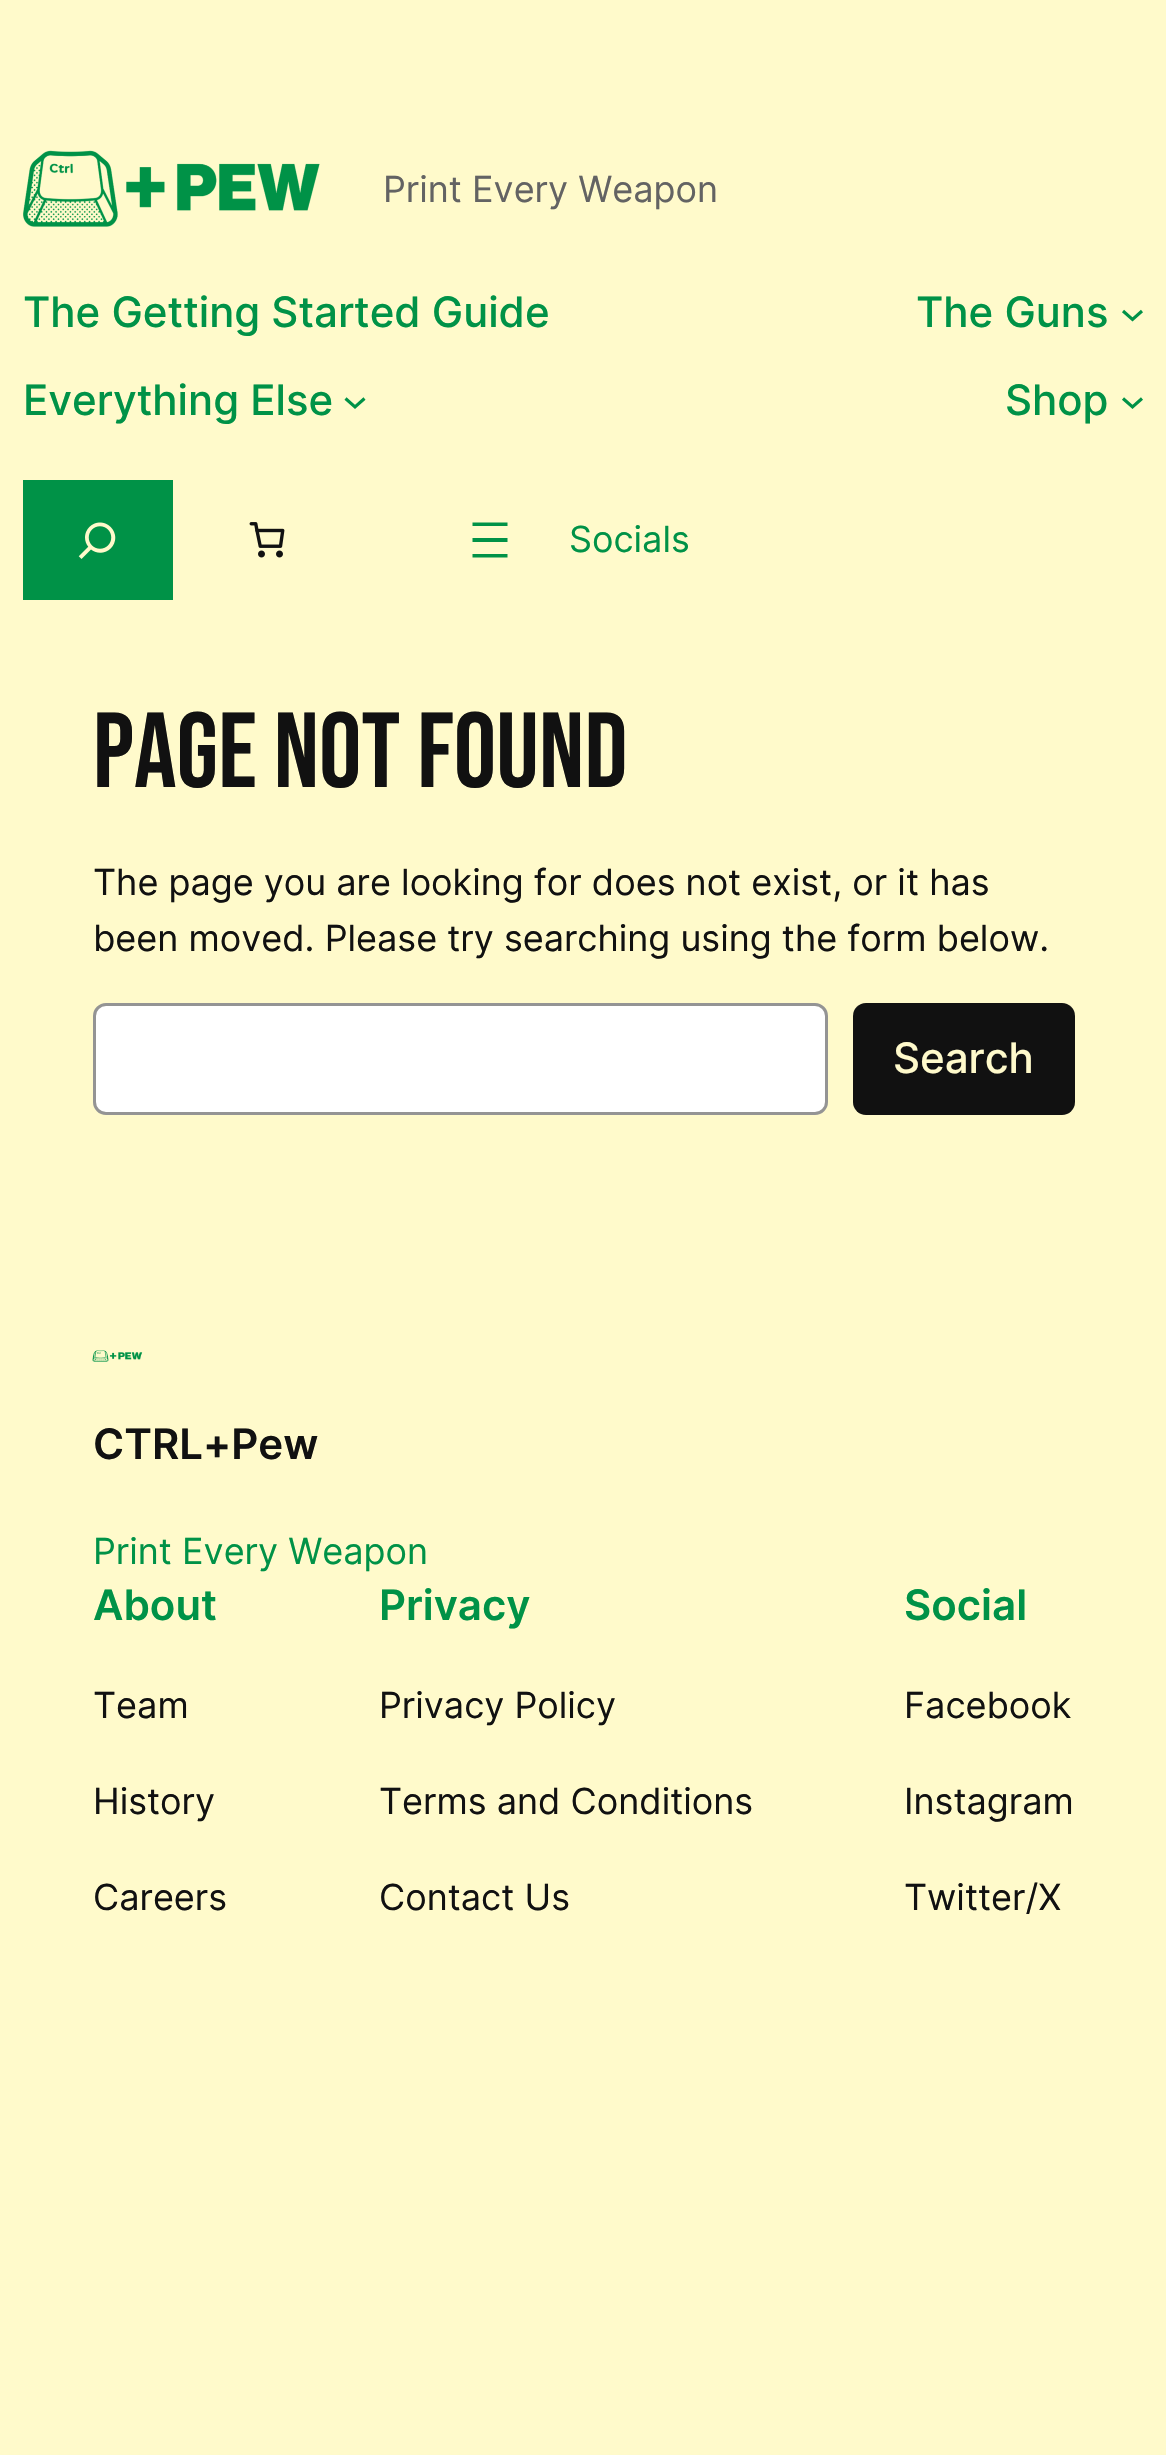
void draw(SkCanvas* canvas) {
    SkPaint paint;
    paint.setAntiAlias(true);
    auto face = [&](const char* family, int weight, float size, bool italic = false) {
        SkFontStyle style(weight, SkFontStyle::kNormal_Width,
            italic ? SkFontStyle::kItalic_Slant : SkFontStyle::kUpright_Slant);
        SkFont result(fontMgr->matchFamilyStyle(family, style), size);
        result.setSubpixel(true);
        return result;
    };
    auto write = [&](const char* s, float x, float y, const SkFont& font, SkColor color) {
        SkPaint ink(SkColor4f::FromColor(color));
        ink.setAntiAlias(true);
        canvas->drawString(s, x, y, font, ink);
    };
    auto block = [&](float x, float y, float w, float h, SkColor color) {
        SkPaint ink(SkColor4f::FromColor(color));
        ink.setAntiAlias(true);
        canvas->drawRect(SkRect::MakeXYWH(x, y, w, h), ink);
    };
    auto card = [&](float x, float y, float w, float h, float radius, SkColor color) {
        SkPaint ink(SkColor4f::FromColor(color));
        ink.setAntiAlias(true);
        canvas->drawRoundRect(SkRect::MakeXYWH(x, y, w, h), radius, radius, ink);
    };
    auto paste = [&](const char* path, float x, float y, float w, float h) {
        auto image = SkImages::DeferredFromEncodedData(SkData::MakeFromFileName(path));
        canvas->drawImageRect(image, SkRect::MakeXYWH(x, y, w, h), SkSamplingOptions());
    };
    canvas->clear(SkColorSetRGB(255, 250, 203));
    paste("pic1.png", 23, 150, 297, 77);
    auto kFont1 = face("Inter", 400, 36);
    write("Print Every Weapon", 383, 202, kFont1, SkColorSetRGB(99, 99, 99));
    auto kFont2 = face("Inter", 500, 42);
    write("The Getting Started Guide", 23, 327, kFont2, SkColorSetRGB(0, 146, 71));
    write("The Guns", 916, 327, kFont2, SkColorSetRGB(0, 146, 71));
    paint.setStyle(SkPaint::kStroke_Style);
    paint.setStrokeWidth(3.1f);
    paint.setColor(SkColorSetRGB(0, 146, 71));
    canvas->drawPath(SkPathBuilder().moveTo(1123, 311).lineTo(1132.5f, 319.5f).lineTo(1142, 311).detach(), paint);
    write("Everything Else", 23, 415, kFont2, SkColorSetRGB(0, 146, 71));
    canvas->drawPath(SkPathBuilder().moveTo(345.5f, 398.5f).lineTo(355, 407).lineTo(364.5f, 398.5f).detach(), paint);
    write("Shop", 1005, 415, kFont2, SkColorSetRGB(0, 146, 71));
    canvas->drawPath(SkPathBuilder().moveTo(1123, 398.5f).lineTo(1132.5f, 407).lineTo(1142, 398.5f).detach(), paint);
    block(23, 480, 150, 120, SkColorSetRGB(0, 146, 71));
    paste("pic2.png", 78, 522, 38, 37);
    paste("pic3.png", 249, 522, 36, 36);
    paint.setStyle(SkPaint::kFill_Style);
    canvas->drawPath(SkPathBuilder().moveTo(472.5f, 522.5f).lineTo(472.5f, 526).lineTo(507.5f, 526).lineTo(507.5f, 522.5f).close().moveTo(472.5f, 542).lineTo(507.5f, 542).lineTo(507.5f, 538).lineTo(472.5f, 538).close().moveTo(472.5f, 557.5f).lineTo(507.5f, 557.5f).lineTo(507.5f, 554).lineTo(472.5f, 554).close().detach(), paint);
    write("Socials", 569, 552, kFont1, SkColorSetRGB(0, 146, 71));
    auto kFont3 = face("Bebas Neue", 400, 106.25f);
    write("Page Not Found", 93, 787, kFont3, SkColorSetRGB(17, 17, 17));
    write("The page you are looking for does not exist, or it has", 93, 895, kFont1, SkColorSetRGB(17, 17, 17));
    write("been moved. Please try searching using the form below.", 93, 951, kFont1, SkColorSetRGB(17, 17, 17));
    paint.setColor(SK_ColorWHITE);
    canvas->drawRoundRect(SkRect::MakeXYWH(94.5f, 1004.5f, 732, 109), 11.5f, 11.5f, paint);
    paint.setStyle(SkPaint::kStroke_Style);
    paint.setStrokeWidth(3);
    paint.setColor(SkColorSetRGB(148, 148, 148));
    canvas->drawRoundRect(SkRect::MakeXYWH(94.5f, 1004.5f, 732, 109), 11.5f, 11.5f, paint);
    card(853, 1003, 222, 112, 13, SkColorSetRGB(17, 17, 17));
    write("Search", 893, 1073, kFont2, SkColorSetRGB(255, 250, 203));
    paste("pic4.png", 92, 1350, 51, 12);
    auto kFont4 = face("Inter", 600, 42);
    write("CTRL+Pew", 93, 1459, kFont4, SkColorSetRGB(17, 17, 17));
    write("Print Every Weapon", 93, 1564, kFont1, SkColorSetRGB(0, 146, 71));
    write("About", 93, 1620, kFont4, SkColorSetRGB(0, 146, 71));
    write("Team", 93, 1718, kFont1, SkColorSetRGB(17, 17, 17));
    write("History", 93, 1814, kFont1, SkColorSetRGB(17, 17, 17));
    write("Careers", 93, 1910, kFont1, SkColorSetRGB(17, 17, 17));
    write("Privacy", 379, 1620, kFont4, SkColorSetRGB(0, 146, 71));
    write("Privacy Policy", 379, 1718, kFont1, SkColorSetRGB(17, 17, 17));
    write("Terms and Conditions", 379, 1814, kFont1, SkColorSetRGB(17, 17, 17));
    write("Contact Us", 379, 1910, kFont1, SkColorSetRGB(17, 17, 17));
    write("Social", 904, 1620, kFont4, SkColorSetRGB(0, 146, 71));
    write("Facebook", 904, 1718, kFont1, SkColorSetRGB(17, 17, 17));
    write("Instagram", 904, 1814, kFont1, SkColorSetRGB(17, 17, 17));
    write("Twitter/X", 904, 1910, kFont1, SkColorSetRGB(17, 17, 17));
}
